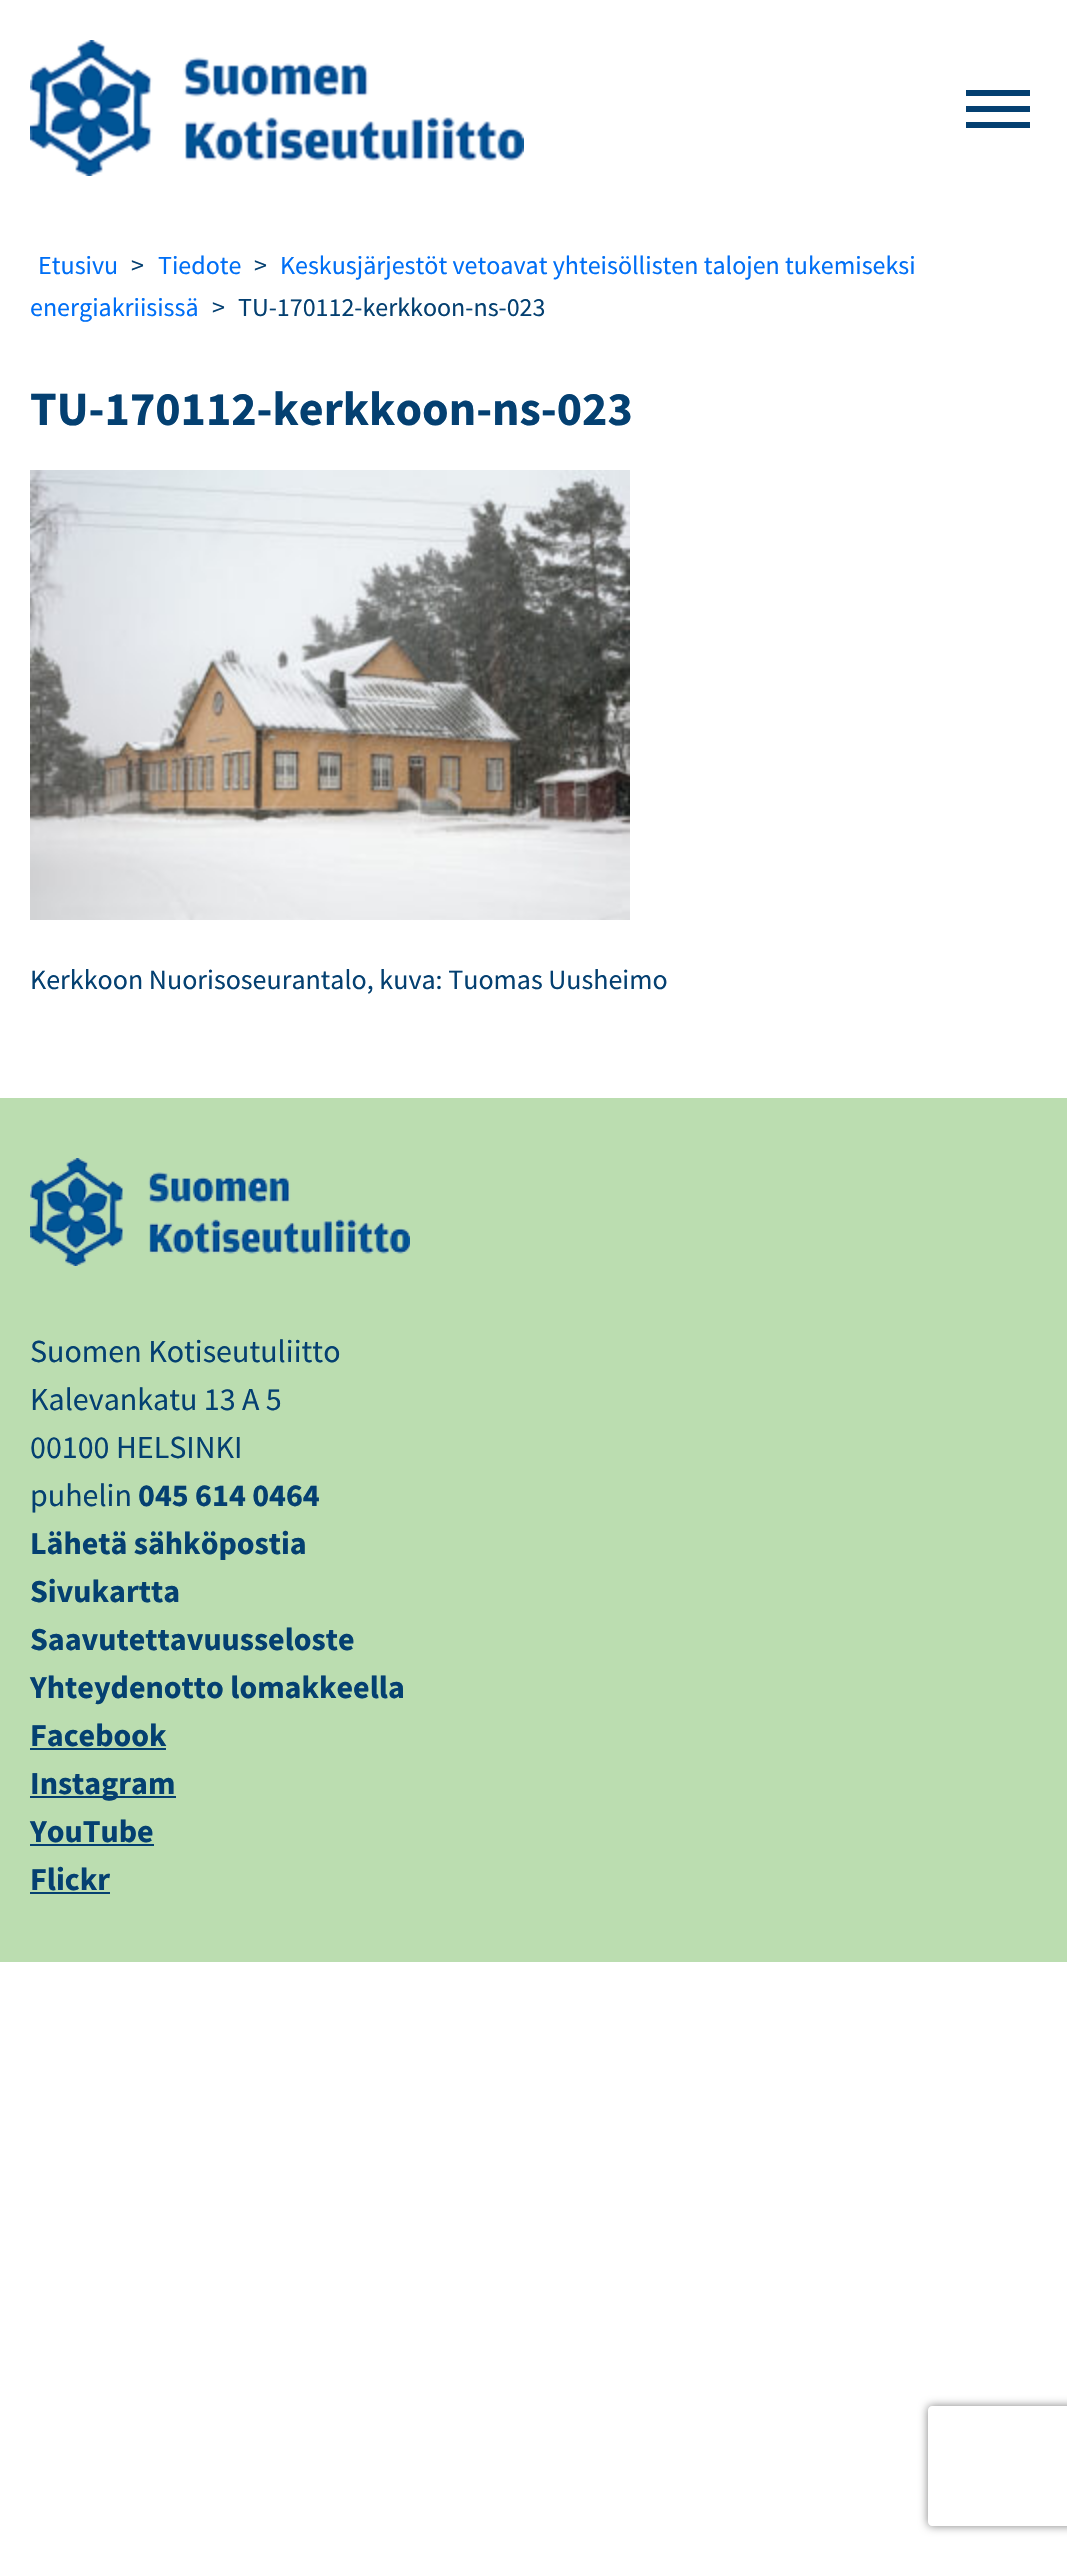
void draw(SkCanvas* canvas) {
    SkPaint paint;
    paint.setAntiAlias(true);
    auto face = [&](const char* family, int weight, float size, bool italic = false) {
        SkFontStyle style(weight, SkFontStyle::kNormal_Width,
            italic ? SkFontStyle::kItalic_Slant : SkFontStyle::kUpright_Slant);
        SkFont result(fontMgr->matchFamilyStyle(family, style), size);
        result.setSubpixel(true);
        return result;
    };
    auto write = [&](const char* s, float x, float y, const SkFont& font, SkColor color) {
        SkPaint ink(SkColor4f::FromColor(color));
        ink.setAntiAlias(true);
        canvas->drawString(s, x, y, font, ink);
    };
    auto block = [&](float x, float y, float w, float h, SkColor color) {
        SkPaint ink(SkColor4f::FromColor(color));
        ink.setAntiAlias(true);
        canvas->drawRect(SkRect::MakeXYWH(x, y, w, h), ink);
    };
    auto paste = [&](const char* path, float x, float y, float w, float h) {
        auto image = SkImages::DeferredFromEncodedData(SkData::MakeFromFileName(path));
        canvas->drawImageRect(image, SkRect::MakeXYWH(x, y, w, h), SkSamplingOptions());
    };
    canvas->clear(SK_ColorWHITE);
    paste("pic1.png", 30, 40, 494, 136);
    block(966, 90, 64, 6, SkColorSetRGB(4, 64, 113));
    block(966, 106, 64, 6, SkColorSetRGB(4, 64, 113));
    block(966, 122, 64, 6, SkColorSetRGB(4, 64, 113));
    auto kFont1 = face("Source Sans Pro", 400, 26);
    write("Etusivu", 38, 274, kFont1, SkColorSetRGB(0, 111, 246));
    write(">", 131, 274, kFont1, SkColorSetRGB(4, 64, 113));
    write("Tiedote", 158, 274, kFont1, SkColorSetRGB(0, 111, 246));
    write(">", 254, 274, kFont1, SkColorSetRGB(4, 64, 113));
    write("Keskusjärjestöt vetoavat yhteisöllisten talojen tukemiseksi", 280, 274, kFont1, SkColorSetRGB(0, 111, 246));
    write("energiakriisissä", 30, 316, kFont1, SkColorSetRGB(0, 111, 246));
    write(">", 212, 316, kFont1, SkColorSetRGB(4, 64, 113));
    write("TU-170112-kerkkoon-ns-023", 238, 316, kFont1, SkColorSetRGB(4, 64, 113));
    auto kFont2 = face("Source Sans Pro", 700, 48);
    write("TU-170112-kerkkoon-ns-023", 30, 425, kFont2, SkColorSetRGB(4, 64, 113));
    paste("pic2.png", 30, 470, 600, 450);
    auto kFont3 = face("Source Sans Pro", 400, 28);
    write("Kerkkoon Nuorisoseurantalo, kuva: Tuomas Uusheimo", 30, 989, kFont3, SkColorSetRGB(4, 64, 113));
    block(0, 1098, 1067, 864, SkColorSetRGB(187, 221, 176));
    paste("pic3.png", 30, 1158, 380, 108);
    auto kFont4 = face("Source Sans Pro", 400, 32);
    write("Suomen Kotiseutuliitto", 30, 1362, kFont4, SkColorSetRGB(4, 64, 113));
    write("Kalevankatu 13 A 5", 30, 1410, kFont4, SkColorSetRGB(4, 64, 113));
    write("00100 HELSINKI", 30, 1458, kFont4, SkColorSetRGB(4, 64, 113));
    write("puhelin", 30, 1506, kFont4, SkColorSetRGB(4, 64, 113));
    auto kFont5 = face("Source Sans Pro", 700, 32);
    write("045 614 0464", 138, 1506, kFont5, SkColorSetRGB(4, 64, 113));
    write("Lähetä sähköpostia", 30, 1554, kFont5, SkColorSetRGB(4, 64, 113));
    write("Sivukartta", 30, 1602, kFont5, SkColorSetRGB(4, 64, 113));
    write("Saavutettavuusseloste", 30, 1650, kFont5, SkColorSetRGB(4, 64, 113));
    write("Yhteydenotto lomakkeella", 30, 1698, kFont5, SkColorSetRGB(4, 64, 113));
    write("Facebook", 30, 1746, kFont5, SkColorSetRGB(4, 64, 113));
    block(30, 1748, 136, 2, SkColorSetRGB(4, 64, 113));
    block(30, 1796, 146, 2, SkColorSetRGB(4, 64, 113));
    write("Instagram", 30, 1794, kFont5, SkColorSetRGB(4, 64, 113));
    write("YouTube", 30, 1842, kFont5, SkColorSetRGB(4, 64, 113));
    block(30, 1844, 124, 2, SkColorSetRGB(4, 64, 113));
    write("Flickr", 30, 1890, kFont5, SkColorSetRGB(4, 64, 113));
    block(30, 1892, 80, 2, SkColorSetRGB(4, 64, 113));
    canvas->save();
    canvas->clipPath(SkPathBuilder(SkPathFillType::kEvenOdd).moveTo(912, 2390).lineTo(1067, 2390).lineTo(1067, 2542).lineTo(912, 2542).close().moveTo(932, 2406).lineTo(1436, 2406).cubicTo(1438, 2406, 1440, 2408, 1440, 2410).lineTo(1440, 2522).cubicTo(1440, 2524, 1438, 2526, 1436, 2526).lineTo(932, 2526).cubicTo(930, 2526, 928, 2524, 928, 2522).lineTo(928, 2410).cubicTo(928, 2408, 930, 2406, 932, 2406).close().detach(), true);
    paint.setColor(SkColorSetRGB(128, 128, 128));
    paint.setMaskFilter(SkMaskFilter::MakeBlur(kNormal_SkBlurStyle, 5));
    canvas->drawRoundRect(SkRect::MakeXYWH(928, 2406, 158, 120), 4, 4, paint);
    paint.setMaskFilter(nullptr);
    canvas->restore();
}
